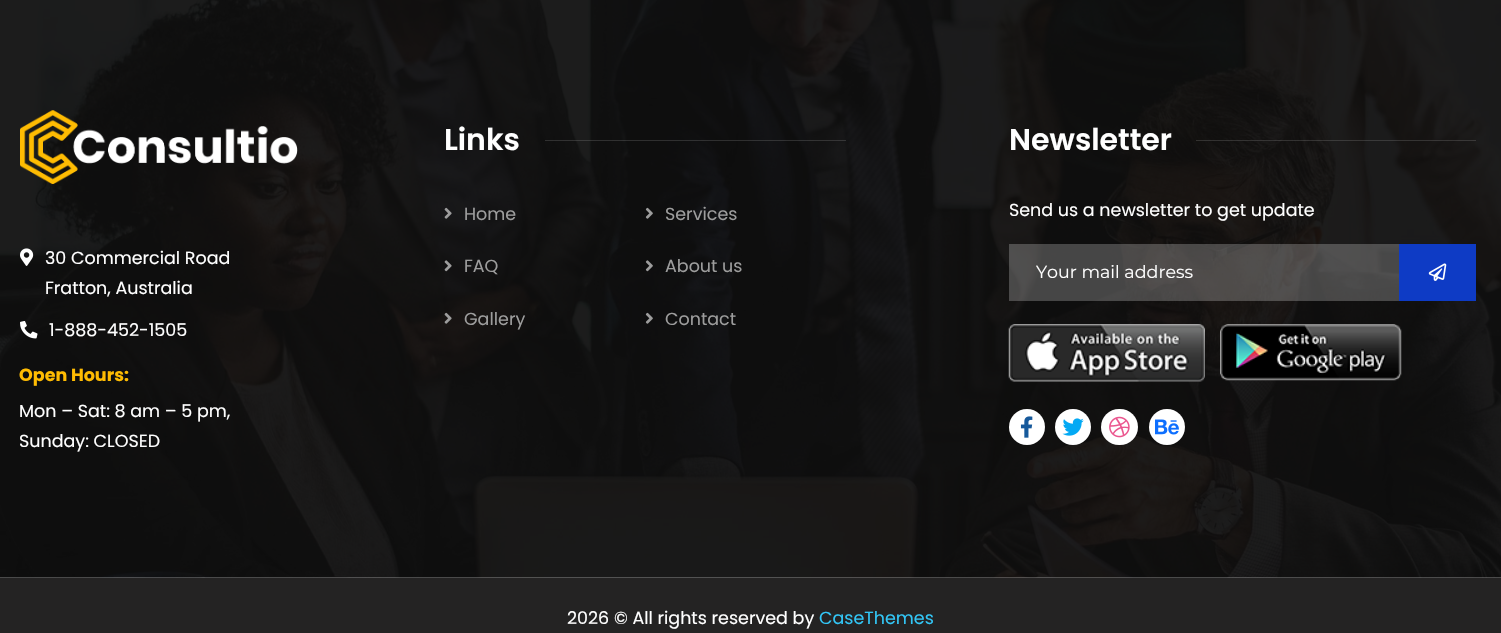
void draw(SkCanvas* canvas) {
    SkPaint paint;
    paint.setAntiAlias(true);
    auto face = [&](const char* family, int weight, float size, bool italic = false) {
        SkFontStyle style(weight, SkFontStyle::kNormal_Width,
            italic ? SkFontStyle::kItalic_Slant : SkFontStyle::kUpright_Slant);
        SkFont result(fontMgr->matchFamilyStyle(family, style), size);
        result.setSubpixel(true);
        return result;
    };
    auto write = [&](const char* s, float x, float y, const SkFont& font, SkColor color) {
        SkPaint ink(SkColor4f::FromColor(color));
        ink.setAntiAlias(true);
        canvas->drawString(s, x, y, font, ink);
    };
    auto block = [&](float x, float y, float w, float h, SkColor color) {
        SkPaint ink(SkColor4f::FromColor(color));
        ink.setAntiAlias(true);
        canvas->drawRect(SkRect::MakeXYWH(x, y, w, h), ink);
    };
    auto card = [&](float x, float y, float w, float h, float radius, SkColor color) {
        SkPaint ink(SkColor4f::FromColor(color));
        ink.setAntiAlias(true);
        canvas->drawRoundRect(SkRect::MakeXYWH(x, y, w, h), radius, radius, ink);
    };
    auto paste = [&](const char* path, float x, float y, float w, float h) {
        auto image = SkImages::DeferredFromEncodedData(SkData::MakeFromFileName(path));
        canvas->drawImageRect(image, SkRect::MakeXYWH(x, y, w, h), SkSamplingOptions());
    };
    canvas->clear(SK_ColorWHITE);
    paste("pic1.png", 0, 0, 1501, 578);
    auto kFont1 = face("Poppins", 600, 30);
    write("Links", 444, 150, kFont1, SK_ColorWHITE);
    block(545, 140, 301, 1, SkColorSetARGB(38, 233, 234, 238));
    paste("pic2.png", 444, 207, 8, 12);
    auto kFont2 = face("Poppins", 400, 17.5f);
    write("Home", 464, 220, kFont2, SkColorSetRGB(157, 157, 157));
    paste("pic3.png", 645, 207, 8, 12);
    write("Services", 665, 220, kFont2, SkColorSetRGB(157, 157, 157));
    paste("pic4.png", 444, 260, 8, 12);
    write("FAQ", 464, 272, kFont2, SkColorSetRGB(157, 157, 157));
    paste("pic5.png", 645, 260, 8, 12);
    write("About us", 665, 272, kFont2, SkColorSetRGB(157, 157, 157));
    paste("pic6.png", 444, 312, 8, 12);
    write("Gallery", 464, 325, kFont2, SkColorSetRGB(157, 157, 157));
    paste("pic7.png", 645, 312, 8, 12);
    write("Contact", 665, 325, kFont2, SkColorSetRGB(157, 157, 157));
    write("Newsletter", 1009, 150, kFont1, SK_ColorWHITE);
    block(1196, 140, 280, 1, SkColorSetARGB(38, 233, 234, 238));
    write("Send us a newsletter to get update", 1009, 216, kFont2, SK_ColorWHITE);
    block(1009, 244, 390, 57, SkColorSetARGB(59, 255, 255, 255));
    auto kFont3 = face("Montserrat", 400, 17.5f);
    write("Your mail address", 1036, 278, kFont3, SK_ColorWHITE);
    block(1399, 244, 77, 57, SkColorSetRGB(14, 59, 197));
    paste("pic8.png", 1428, 263, 19, 18);
    paste("pic9.png", 1008, 324, 197, 58);
    paste("pic10.png", 1220, 324, 182, 57);
    paint.setColor(SK_ColorWHITE);
    canvas->drawCircle(1027, 427, 18, paint);
    paste("pic11.png", 1020, 416, 13, 22);
    canvas->drawCircle(1073, 427, 18, paint);
    paste("pic12.png", 1062, 418, 22, 18);
    card(1101, 409, 37, 36, 18, SK_ColorWHITE);
    paste("pic13.png", 1109, 416, 21, 22);
    canvas->drawCircle(1167, 427, 18, paint);
    paste("pic14.png", 1155, 419, 24, 16);
    paste("pic15.png", 20, 110, 278, 74);
    paste("pic16.png", 20, 248, 14, 18);
    write("30 Commercial Road", 45, 264, kFont2, SK_ColorWHITE);
    write("Fratton, Australia", 45, 294, kFont2, SK_ColorWHITE);
    paste("pic17.png", 20, 321, 18, 18);
    write("1-888-452-1505", 49, 336, kFont2, SK_ColorWHITE);
    auto kFont4 = face("Poppins", 700, 17.5f);
    write("Open Hours:", 19, 381, kFont4, SkColorSetRGB(255, 188, 2));
    write("Mon – Sat: 8 am – 5 pm,", 19, 417, kFont2, SK_ColorWHITE);
    write("Sunday: CLOSED", 19, 447, kFont2, SK_ColorWHITE);
    block(0, 578, 1501, 55, SkColorSetRGB(36, 35, 35));
    write("2026 © All rights reserved by", 567, 624, kFont2, SK_ColorWHITE);
    write("CaseThemes", 819, 624, kFont2, SkColorSetRGB(50, 198, 246));
}
